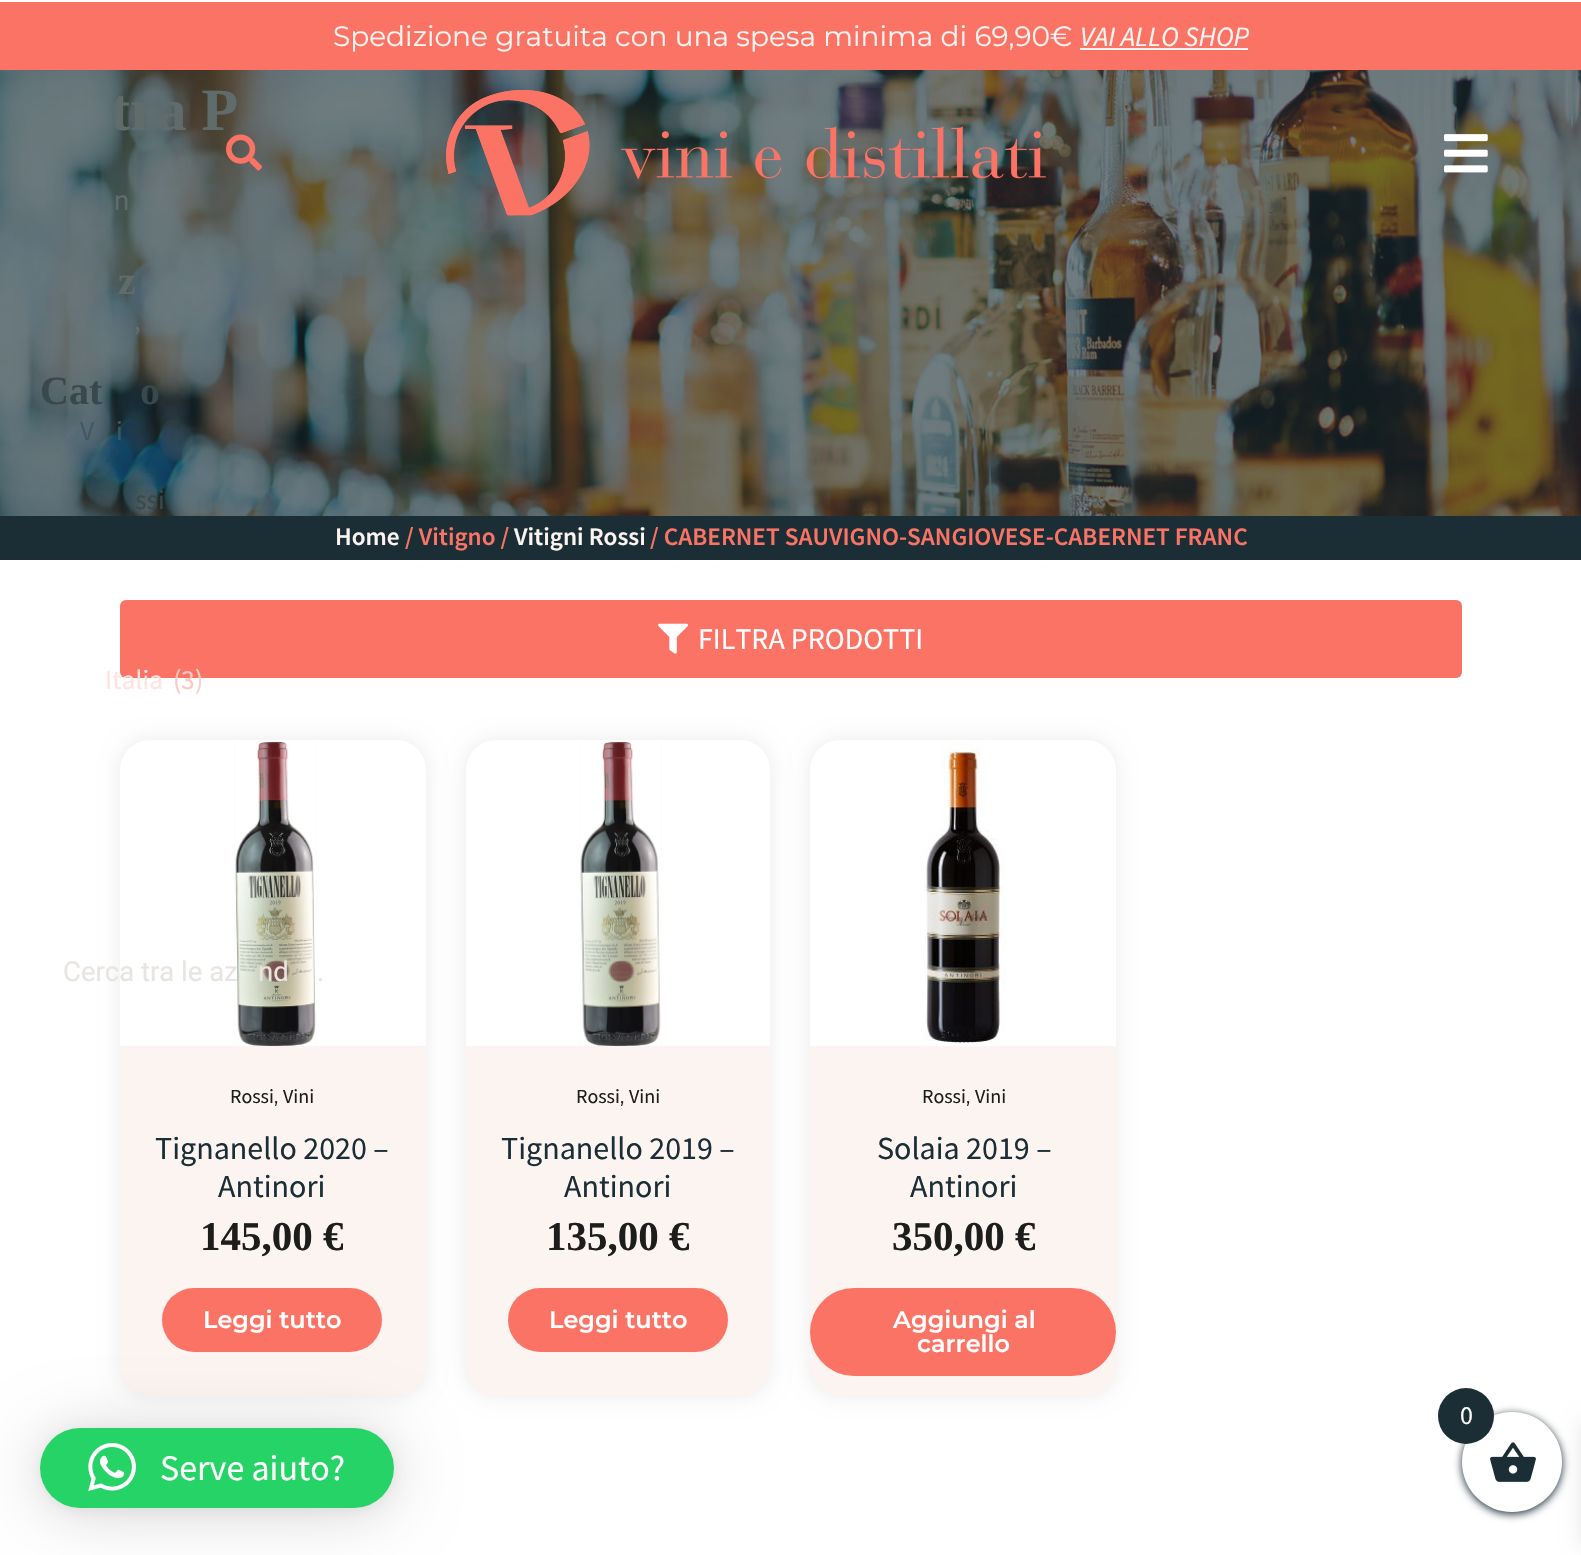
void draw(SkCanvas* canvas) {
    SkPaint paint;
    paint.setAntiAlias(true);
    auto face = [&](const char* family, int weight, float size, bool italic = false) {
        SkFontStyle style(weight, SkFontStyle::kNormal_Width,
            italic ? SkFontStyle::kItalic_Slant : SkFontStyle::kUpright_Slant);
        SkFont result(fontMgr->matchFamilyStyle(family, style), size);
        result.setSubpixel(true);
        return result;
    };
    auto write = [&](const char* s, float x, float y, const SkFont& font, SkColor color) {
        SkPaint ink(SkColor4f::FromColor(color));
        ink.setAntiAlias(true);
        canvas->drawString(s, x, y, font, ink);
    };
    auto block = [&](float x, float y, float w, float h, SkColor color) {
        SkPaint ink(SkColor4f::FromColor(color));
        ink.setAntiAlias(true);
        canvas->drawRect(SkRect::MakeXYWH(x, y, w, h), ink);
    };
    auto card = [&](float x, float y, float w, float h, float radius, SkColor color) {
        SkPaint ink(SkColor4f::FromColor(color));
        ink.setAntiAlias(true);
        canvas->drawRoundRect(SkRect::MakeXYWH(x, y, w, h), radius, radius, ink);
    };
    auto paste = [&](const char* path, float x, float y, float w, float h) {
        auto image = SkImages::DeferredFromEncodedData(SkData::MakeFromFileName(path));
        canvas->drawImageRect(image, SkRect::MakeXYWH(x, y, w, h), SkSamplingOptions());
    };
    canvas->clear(SK_ColorWHITE);
    block(0, 2, 1581, 68, SkColorSetRGB(250, 115, 101));
    auto kFont1 = face("Montserrat", 400, 28);
    write("Spedizione gratuita con una spesa minima di 69,90€", 333, 46, kFont1, SkColorSetRGB(251, 244, 241));
    auto kFont2 = face("Source Sans Pro", 400, 28, true);
    write("VAI ALLO SHOP", 1080, 46, kFont2, SkColorSetRGB(251, 244, 241));
    block(1080, 48, 168, 2, SkColorSetRGB(251, 244, 241));
    paste("pic4.png", 0, 70, 1581, 446);
    paste("pic1.png", 226, 134, 36, 37);
    paste("pic2.png", 446, 90, 600, 126);
    paste("pic3.png", 1444, 134, 44, 39);
    block(0, 516, 1581, 44, SkColorSetRGB(27, 46, 53));
    auto kFont3 = face("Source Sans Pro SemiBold", 600, 25.2f);
    write("Home", 335, 545, kFont3, SkColorSetRGB(251, 244, 241));
    write("/ Vitigno /", 405, 545, kFont3, SkColorSetRGB(250, 115, 101));
    write("Vitigni Rossi", 514, 545, kFont3, SkColorSetRGB(251, 244, 241));
    write("/ CABERNET SAUVIGNO-SANGIOVESE-CABERNET FRANC", 650, 545, kFont3, SkColorSetRGB(250, 115, 101));
    card(120, 600, 1342, 78, 6, SkColorSetRGB(250, 115, 101));
    paste("pic5.png", 658, 623, 30, 31);
    auto kFont4 = face("Source Sans Pro", 400, 30);
    write("FILTRA PRODOTTI", 698, 649, kFont4, SK_ColorWHITE);
    paint.setColor(SkColorSetARGB(20, 0, 0, 0));
    paint.setMaskFilter(SkMaskFilter::MakeBlur(kNormal_SkBlurStyle, 10));
    canvas->drawRoundRect(SkRect::MakeXYWH(120, 740, 306, 656), 30, 30, paint);
    paint.setMaskFilter(nullptr);
    card(120, 740, 306, 656, 30, SkColorSetRGB(251, 244, 241));
    paste("pic6.png", 120, 740, 306, 306);
    auto kFont5 = face("Source Sans Pro", 400, 20);
    write("Rossi", 230, 1103, kFont5, SkColorSetRGB(29, 29, 27));
    auto kFont6 = face("Montserrat", 400, 20);
    write(",", 274, 1103, kFont6, SkColorSetRGB(29, 29, 27));
    write("Vini", 283, 1103, kFont5, SkColorSetRGB(29, 29, 27));
    auto kFont7 = face("Source Sans Pro", 400, 32);
    write("Tignanello 2020 –", 155, 1159, kFont7, SkColorSetRGB(27, 46, 53));
    write("Antinori", 218, 1197, kFont7, SkColorSetRGB(27, 46, 53));
    auto kFont8 = face("Liberation Serif", 700, 41);
    write("145,00 €", 200, 1250, kFont8, SkColorSetRGB(29, 29, 27));
    card(162, 1288, 220, 64, 32, SkColorSetRGB(250, 115, 101));
    auto kFont9 = face("Montserrat", 600, 24);
    write("Leggi tutto", 203, 1328, kFont9, SK_ColorWHITE);
    paint.setMaskFilter(SkMaskFilter::MakeBlur(kNormal_SkBlurStyle, 10));
    canvas->drawRoundRect(SkRect::MakeXYWH(466, 740, 304, 656), 30, 30, paint);
    paint.setMaskFilter(nullptr);
    card(466, 740, 304, 656, 30, SkColorSetRGB(251, 244, 241));
    paste("pic7.png", 466, 740, 304, 306);
    write("Rossi", 576, 1103, kFont5, SkColorSetRGB(29, 29, 27));
    write(",", 620, 1103, kFont6, SkColorSetRGB(29, 29, 27));
    write("Vini", 629, 1103, kFont5, SkColorSetRGB(29, 29, 27));
    write("Tignanello 2019 –", 501, 1159, kFont7, SkColorSetRGB(27, 46, 53));
    write("Antinori", 564, 1197, kFont7, SkColorSetRGB(27, 46, 53));
    write("135,00 €", 546, 1250, kFont8, SkColorSetRGB(29, 29, 27));
    card(508, 1288, 220, 64, 32, SkColorSetRGB(250, 115, 101));
    write("Leggi tutto", 549, 1328, kFont9, SK_ColorWHITE);
    paint.setMaskFilter(SkMaskFilter::MakeBlur(kNormal_SkBlurStyle, 10));
    canvas->drawRoundRect(SkRect::MakeXYWH(810, 740, 306, 656), 30, 30, paint);
    paint.setMaskFilter(nullptr);
    card(810, 740, 306, 656, 30, SkColorSetRGB(251, 244, 241));
    paste("pic8.png", 810, 740, 306, 306);
    write("Rossi", 922, 1103, kFont5, SkColorSetRGB(29, 29, 27));
    write(",", 966, 1103, kFont6, SkColorSetRGB(29, 29, 27));
    write("Vini", 975, 1103, kFont5, SkColorSetRGB(29, 29, 27));
    write("Solaia 2019 –", 877, 1159, kFont7, SkColorSetRGB(27, 46, 53));
    write("Antinori", 910, 1197, kFont7, SkColorSetRGB(27, 46, 53));
    write("350,00 €", 892, 1250, kFont8, SkColorSetRGB(29, 29, 27));
    card(810, 1288, 306, 88, 44, SkColorSetRGB(250, 115, 101));
    write("Aggiungi al", 893, 1328, kFont9, SK_ColorWHITE);
    write("carrello", 917, 1352, kFont9, SK_ColorWHITE);
    auto kFont10 = face("Liberation Serif", 700, 60);
    write("tra P", 110, 130, kFont10, SkColorSetRGB(96, 108, 108));
    auto kFont11 = face("Roboto", 400, 27.5f);
    write("n", 114, 210, kFont11, SkColorSetRGB(96, 108, 108));
    auto kFont12 = face("Liberation Serif", 700, 40);
    write("z", 118, 294, kFont12, SkColorSetRGB(96, 108, 108));
    auto kFont13 = face("Source Sans Pro", 400, 27.5f);
    write(",", 134, 330, kFont13, SkColorSetRGB(95, 111, 116));
    write("Cat", 40, 404, kFont12, SkColorSetRGB(56, 72, 77));
    write("o", 140, 404, kFont12, SkColorSetRGB(56, 72, 77));
    write("V", 80, 440, kFont13, SkColorSetRGB(63, 88, 100));
    write("i", 116, 440, kFont13, SkColorSetRGB(63, 88, 100));
    write("ssi", 135, 509, kFont13, SkColorSetRGB(56, 72, 77));
    write("Italia", 105, 689, kFont13, SkColorSetRGB(254, 227, 224));
    write("(", 173, 689, kFont13, SkColorSetRGB(253, 200, 194));
    write("3", 181, 689, kFont13, SkColorSetRGB(253, 200, 194));
    write(")", 195, 689, kFont13, SkColorSetRGB(253, 207, 202));
    write("Cerca tra le az", 63, 981, kFont11, SkColorSetRGB(232, 229, 225));
    write("nd", 258, 981, kFont11, SkColorSetRGB(232, 229, 225));
    write(".", 317, 981, kFont11, SkColorSetRGB(232, 229, 225));
    paint.setColor(SkColorSetRGB(27, 46, 53));
    paint.setMaskFilter(SkMaskFilter::MakeBlur(kNormal_SkBlurStyle, 4));
    canvas->drawRoundRect(SkRect::MakeXYWH(1462, 1414, 100, 100), 50, 50, paint);
    paint.setMaskFilter(nullptr);
    paint.setColor(SkColorSetARGB(26, 0, 0, 0));
    paint.setMaskFilter(SkMaskFilter::MakeBlur(kNormal_SkBlurStyle, 10));
    canvas->drawRect(SkRect::MakeXYWH(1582, 1422, 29, 124), paint);
    paint.setMaskFilter(nullptr);
    paint.setColor(SK_ColorWHITE);
    canvas->drawCircle(1512, 1462, 50, paint);
    paste("pic9.png", 1490, 1442, 46, 40);
    paint.setColor(SkColorSetRGB(27, 46, 53));
    canvas->drawCircle(1466, 1416, 28, paint);
    auto kFont14 = face("Source Sans Pro", 400, 26);
    write("0", 1460, 1424, kFont14, SK_ColorWHITE);
    paint.setColor(SkColorSetARGB(41, 0, 0, 0));
    paint.setMaskFilter(SkMaskFilter::MakeBlur(kNormal_SkBlurStyle, 32));
    canvas->drawRoundRect(SkRect::MakeXYWH(40, 1432, 354, 80), 40, 40, paint);
    paint.setMaskFilter(nullptr);
    paint.setColor(SkColorSetARGB(15, 0, 0, 0));
    paint.setMaskFilter(SkMaskFilter::MakeBlur(kNormal_SkBlurStyle, 6));
    canvas->drawRoundRect(SkRect::MakeXYWH(40, 1430, 354, 80), 40, 40, paint);
    paint.setMaskFilter(nullptr);
    card(40, 1428, 354, 80, 40, SkColorSetRGB(37, 211, 102));
    paste("pic10.png", 88, 1443, 48, 48);
    auto kFont15 = face("Source Sans Pro", 400, 36);
    write("Serve aiuto?", 160, 1480, kFont15, SK_ColorWHITE);
}
